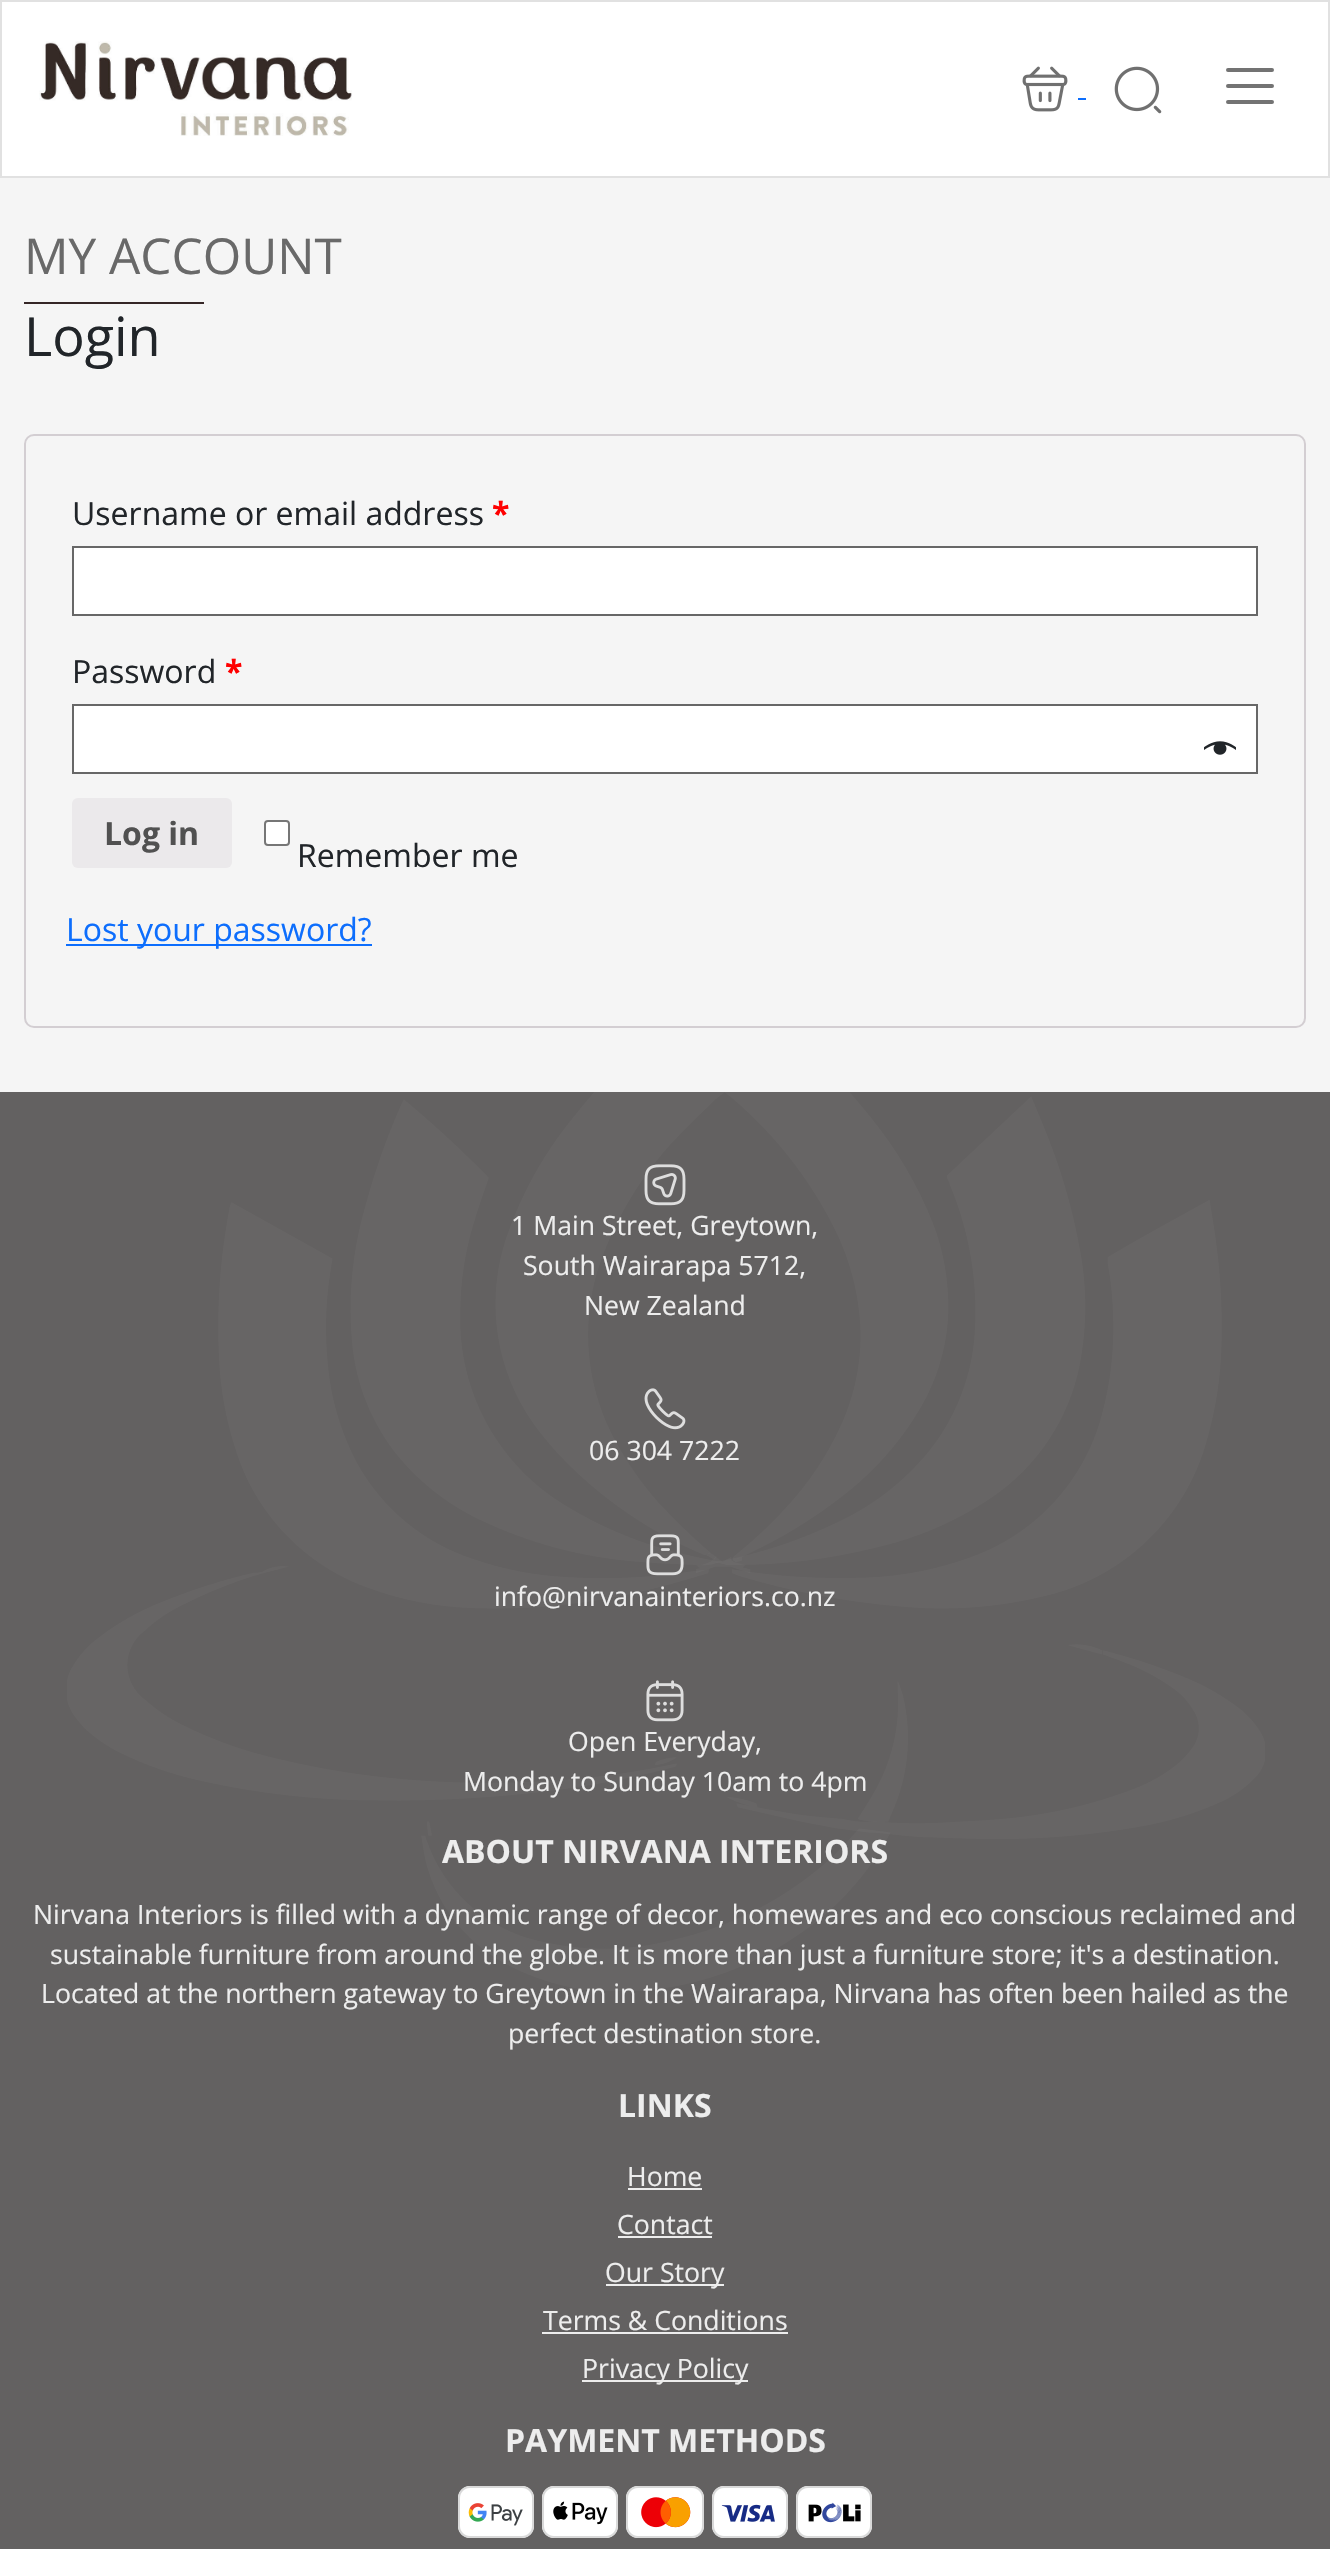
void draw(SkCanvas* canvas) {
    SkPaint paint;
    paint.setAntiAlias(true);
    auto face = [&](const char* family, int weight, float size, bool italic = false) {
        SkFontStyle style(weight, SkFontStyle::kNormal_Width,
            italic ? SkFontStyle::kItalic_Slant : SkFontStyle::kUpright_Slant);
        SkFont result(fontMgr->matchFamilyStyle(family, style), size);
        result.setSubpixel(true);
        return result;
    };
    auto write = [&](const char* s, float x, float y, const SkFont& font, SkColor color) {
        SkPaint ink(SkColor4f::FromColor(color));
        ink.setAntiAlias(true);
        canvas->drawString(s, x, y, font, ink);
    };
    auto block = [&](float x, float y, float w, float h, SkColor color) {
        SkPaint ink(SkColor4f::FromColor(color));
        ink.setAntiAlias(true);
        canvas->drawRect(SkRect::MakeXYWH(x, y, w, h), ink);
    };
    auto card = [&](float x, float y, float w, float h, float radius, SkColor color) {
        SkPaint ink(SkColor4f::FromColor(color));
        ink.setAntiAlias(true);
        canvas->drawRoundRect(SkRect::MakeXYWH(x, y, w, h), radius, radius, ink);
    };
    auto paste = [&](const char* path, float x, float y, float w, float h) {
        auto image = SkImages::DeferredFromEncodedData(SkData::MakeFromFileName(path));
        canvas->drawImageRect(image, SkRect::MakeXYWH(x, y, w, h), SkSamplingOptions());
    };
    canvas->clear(SkColorSetRGB(245, 245, 245));
    paint.setColor(SK_ColorWHITE);
    canvas->drawRect(SkRect::MakeXYWH(1, 1, 1328, 176), paint);
    paint.setStyle(SkPaint::kStroke_Style);
    paint.setStrokeWidth(2);
    paint.setColor(SkColorSetRGB(225, 225, 225));
    canvas->drawRect(SkRect::MakeXYWH(1, 1, 1328, 176), paint);
    paste("pic1.png", 39, 41, 313, 95);
    paste("pic2.png", 1022, 66, 46, 46);
    block(1078, 98, 8, 2, SkColorSetRGB(13, 110, 253));
    paste("pic3.png", 1114, 66, 48, 48);
    paint.setStrokeWidth(4);
    paint.setStrokeCap(SkPaint::kRound_Cap);
    paint.setColor(SkColorSetRGB(115, 115, 115));
    canvas->drawPath(SkPathBuilder().moveTo(1228, 70).lineTo(1272, 70).moveTo(1228, 86).lineTo(1272, 86).moveTo(1228, 102).lineTo(1272, 102).detach(), paint);
    auto kFont1 = face("Open Sans", 400, 49.5f);
    write("MY ACCOUNT", 24, 274, kFont1, SkColorSetRGB(105, 105, 105));
    block(24, 302, 180, 2, SkColorSetRGB(53, 38, 38));
    auto kFont2 = face("Open Sans", 400, 54);
    write("Login", 24, 356, kFont2, SkColorSetRGB(33, 37, 41));
    paint.setStrokeWidth(2);
    paint.setStrokeCap(SkPaint::kButt_Cap);
    paint.setColor(SkColorSetRGB(211, 206, 210));
    canvas->drawRoundRect(SkRect::MakeXYWH(25, 435, 1280, 592), 9, 9, paint);
    auto kFont3 = face("Open Sans", 400, 32);
    write("Username or email address", 72, 525, kFont3, SkColorSetRGB(33, 37, 41));
    auto kFont4 = face("Open Sans", 700, 32);
    write("*", 492, 525, kFont4, SkColorSetRGB(255, 0, 0));
    paint.setStyle(SkPaint::kFill_Style);
    paint.setColor(SK_ColorWHITE);
    canvas->drawRect(SkRect::MakeXYWH(73, 547, 1184, 68), paint);
    paint.setStyle(SkPaint::kStroke_Style);
    paint.setColor(SkColorSetRGB(103, 103, 103));
    canvas->drawRect(SkRect::MakeXYWH(73, 547, 1184, 68), paint);
    write("Password", 72, 683, kFont3, SkColorSetRGB(33, 37, 41));
    write("*", 225, 683, kFont4, SkColorSetRGB(255, 0, 0));
    paint.setStyle(SkPaint::kFill_Style);
    paint.setColor(SK_ColorWHITE);
    canvas->drawRect(SkRect::MakeXYWH(73, 705, 1184, 68), paint);
    paint.setStyle(SkPaint::kStroke_Style);
    paint.setColor(SkColorSetRGB(103, 103, 103));
    canvas->drawRect(SkRect::MakeXYWH(73, 705, 1184, 68), paint);
    paste("pic4.png", 1204, 741, 32, 14);
    card(72, 798, 160, 70, 6, SkColorSetRGB(235, 233, 235));
    write("Log in", 104, 845, kFont4, SkColorSetRGB(81, 81, 81));
    paint.setStyle(SkPaint::kFill_Style);
    paint.setColor(SK_ColorWHITE);
    canvas->drawRoundRect(SkRect::MakeXYWH(265, 821, 24, 24), 3, 3, paint);
    paint.setStyle(SkPaint::kStroke_Style);
    paint.setColor(SkColorSetRGB(118, 118, 118));
    canvas->drawRoundRect(SkRect::MakeXYWH(265, 821, 24, 24), 3, 3, paint);
    write("Remember me", 297, 867, kFont3, SkColorSetRGB(33, 37, 41));
    block(66, 944, 306, 2, SkColorSetRGB(13, 110, 253));
    write("Lost your password?", 66, 941, kFont3, SkColorSetRGB(13, 110, 253));
    block(0, 1092, 1330, 1457, SkColorSetRGB(99, 97, 97));
    paste("pic5.png", 67, 1092, 1198, 899);
    paste("pic6.png", 644, 1164, 42, 42);
    auto kFont5 = face("Open Sans", 400, 26.65f);
    write("1 Main Street, Greytown,", 511, 1235, kFont5, SkColorSetRGB(237, 237, 237));
    write("South Wairarapa 5712,", 523, 1275, kFont5, SkColorSetRGB(237, 237, 237));
    write("New Zealand", 584, 1315, kFont5, SkColorSetRGB(237, 237, 237));
    paste("pic7.png", 644, 1388, 42, 42);
    write("06 304 7222", 589, 1460, kFont5, SkColorSetRGB(237, 237, 237));
    paste("pic8.png", 646, 1534, 38, 42);
    write("info@nirvanainteriors.co.nz", 494, 1606, kFont5, SkColorSetRGB(237, 237, 237));
    paste("pic9.png", 646, 1680, 38, 42);
    write("Open Everyday,", 568, 1751, kFont5, SkColorSetRGB(237, 237, 237));
    write("Monday to Sunday 10am to 4pm", 463, 1791, kFont5, SkColorSetRGB(237, 237, 237));
    write("ABOUT NIRVANA INTERIORS", 442, 1863, kFont4, SkColorSetRGB(237, 237, 237));
    write("Nirvana Interiors is filled with a dynamic range of decor, homewares and eco conscious reclaimed and", 33, 1924, kFont5, SkColorSetRGB(237, 237, 237));
    write("sustainable furniture from around the globe. It is more than just a furniture store; it's a destination.", 50, 1964, kFont5, SkColorSetRGB(237, 237, 237));
    write("Located at the northern gateway to Greytown in the Wairarapa, Nirvana has often been hailed as the", 41, 2003, kFont5, SkColorSetRGB(237, 237, 237));
    write("perfect destination store.", 508, 2043, kFont5, SkColorSetRGB(237, 237, 237));
    write("LINKS", 618, 2117, kFont4, SkColorSetRGB(237, 237, 237));
    write("Home", 627, 2186, kFont5, SkColorSetRGB(237, 237, 237));
    block(628, 2188, 74, 2, SkColorSetRGB(237, 237, 237));
    write("Contact", 617, 2234, kFont5, SkColorSetRGB(237, 237, 237));
    block(618, 2236, 94, 2, SkColorSetRGB(237, 237, 237));
    block(606, 2284, 118, 2, SkColorSetRGB(237, 237, 237));
    write("Our Story", 605, 2282, kFont5, SkColorSetRGB(237, 237, 237));
    write("Terms & Conditions", 543, 2330, kFont5, SkColorSetRGB(237, 237, 237));
    block(542, 2332, 246, 2, SkColorSetRGB(237, 237, 237));
    block(582, 2380, 166, 2, SkColorSetRGB(237, 237, 237));
    write("Privacy Policy", 582, 2378, kFont5, SkColorSetRGB(237, 237, 237));
    write("PAYMENT METHODS", 505, 2452, kFont4, SkColorSetRGB(237, 237, 237));
    paste("pic10.png", 458, 2486, 76, 52);
    paste("pic11.png", 542, 2486, 76, 52);
    paste("pic12.png", 626, 2486, 78, 52);
    paste("pic13.png", 712, 2486, 76, 52);
    paste("pic14.png", 796, 2486, 76, 52);
}
